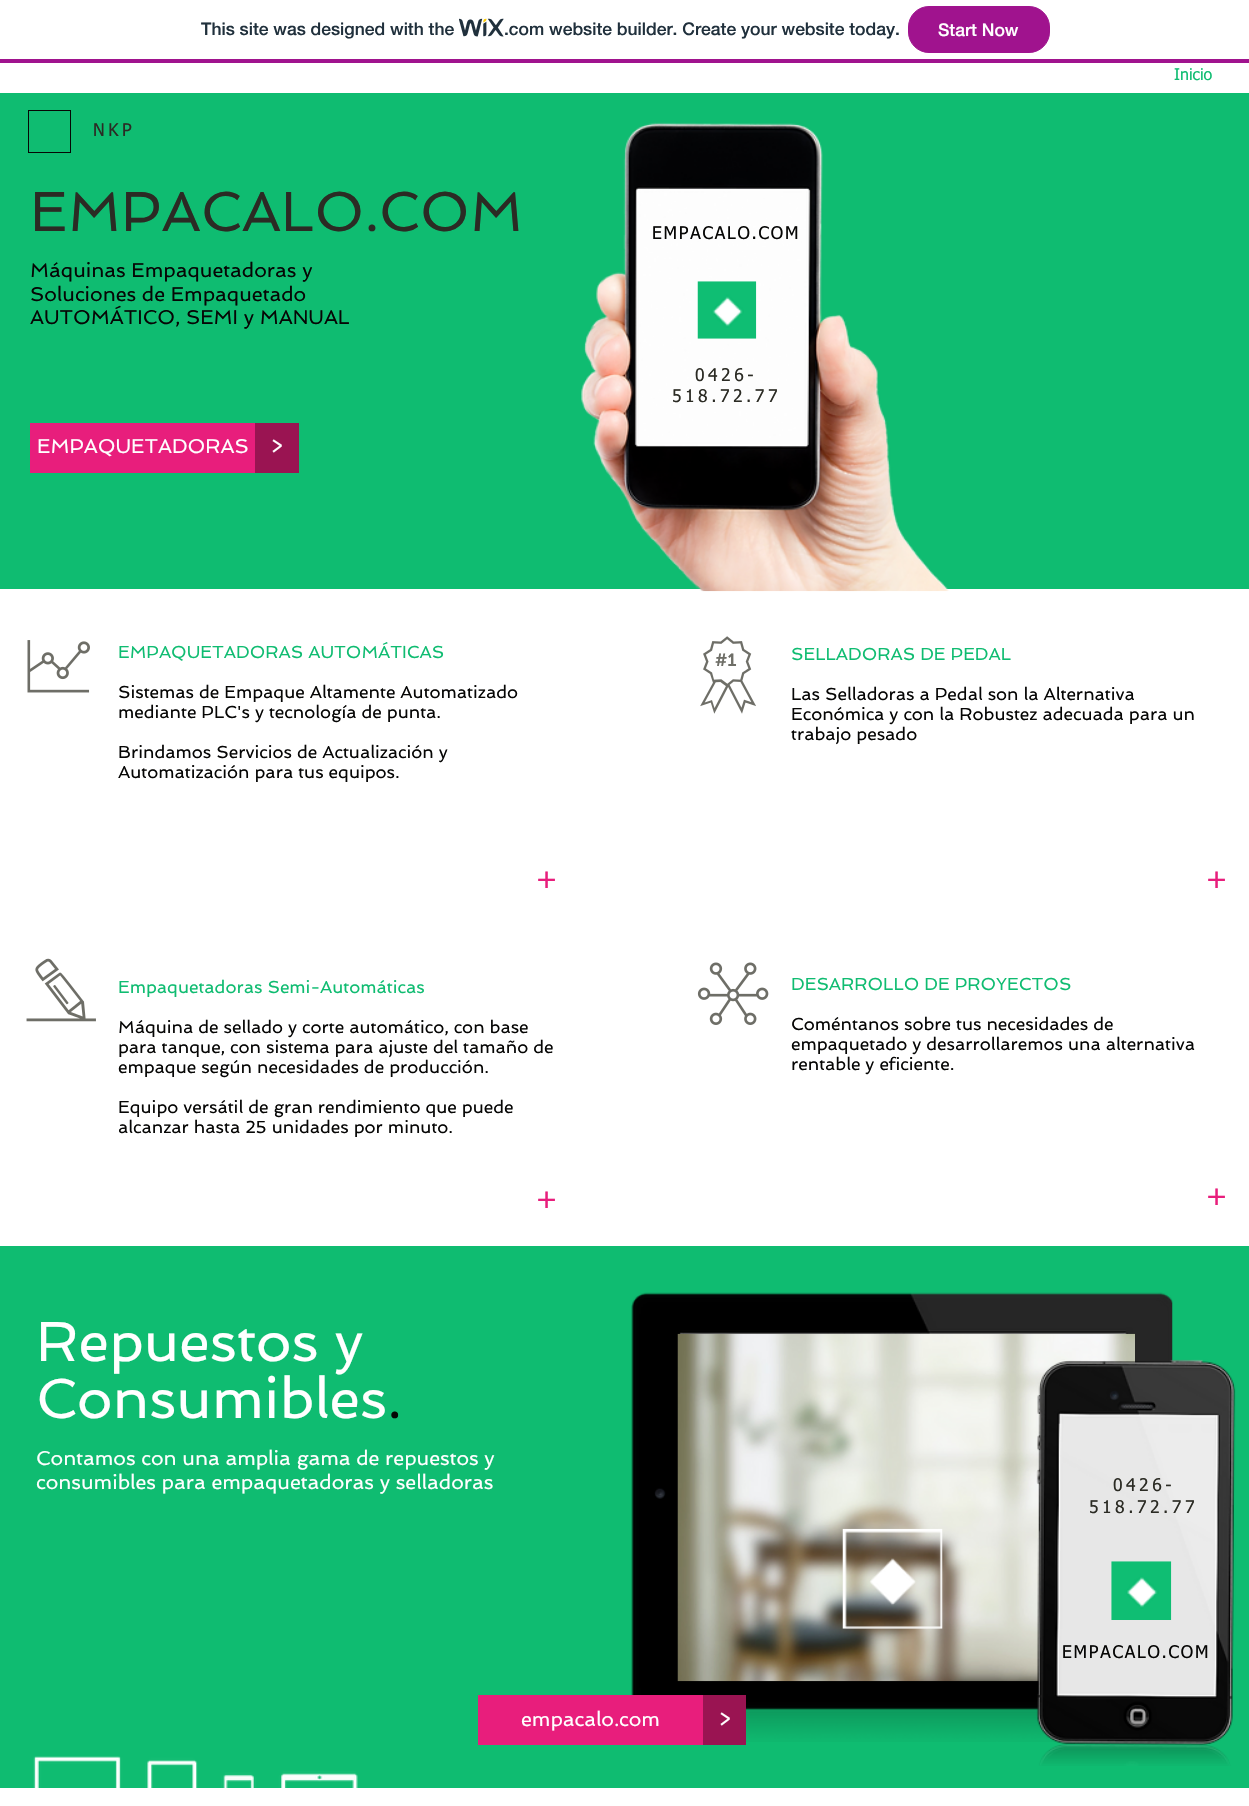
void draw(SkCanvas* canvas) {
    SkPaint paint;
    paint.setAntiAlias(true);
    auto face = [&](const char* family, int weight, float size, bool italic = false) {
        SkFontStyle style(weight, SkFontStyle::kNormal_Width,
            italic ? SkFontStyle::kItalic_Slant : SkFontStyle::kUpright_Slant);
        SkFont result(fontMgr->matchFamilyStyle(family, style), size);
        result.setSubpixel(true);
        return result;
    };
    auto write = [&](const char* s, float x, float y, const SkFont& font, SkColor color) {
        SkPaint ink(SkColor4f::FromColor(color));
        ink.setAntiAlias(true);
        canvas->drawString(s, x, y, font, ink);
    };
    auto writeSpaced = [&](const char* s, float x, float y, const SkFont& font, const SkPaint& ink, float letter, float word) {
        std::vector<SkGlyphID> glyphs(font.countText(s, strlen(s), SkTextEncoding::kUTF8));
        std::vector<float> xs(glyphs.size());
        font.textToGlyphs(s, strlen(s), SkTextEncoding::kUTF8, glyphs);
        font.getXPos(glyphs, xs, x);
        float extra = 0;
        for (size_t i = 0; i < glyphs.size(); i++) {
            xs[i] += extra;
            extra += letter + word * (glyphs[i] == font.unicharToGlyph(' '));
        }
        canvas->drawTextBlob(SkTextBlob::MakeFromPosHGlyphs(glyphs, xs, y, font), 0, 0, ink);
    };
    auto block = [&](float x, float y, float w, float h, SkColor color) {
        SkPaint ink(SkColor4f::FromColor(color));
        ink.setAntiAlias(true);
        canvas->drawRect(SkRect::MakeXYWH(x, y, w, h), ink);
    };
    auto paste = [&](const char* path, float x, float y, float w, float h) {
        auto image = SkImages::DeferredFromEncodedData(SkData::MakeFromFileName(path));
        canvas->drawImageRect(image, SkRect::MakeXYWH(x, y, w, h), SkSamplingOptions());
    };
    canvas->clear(SK_ColorWHITE);
    block(0, 59, 1249, 4, SkColorSetRGB(160, 19, 142));
    auto kFont1 = face("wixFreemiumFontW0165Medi", 500, 17.5f);
    write("This site was designed with the", 201, 35, kFont1, SkColorSetRGB(32, 48, 60));
    paste("pic1.png", 459, 18, 45, 19);
    write(".com website builder. Create your website today.", 504, 35, kFont1, SkColorSetRGB(32, 48, 60));
    paint.setColor(SkColorSetRGB(160, 19, 142));
    canvas->drawRoundRect(SkRect::MakeXYWH(908.5f, 6.5f, 141, 46), 20.5f, 20.5f, paint);
    paint.setStyle(SkPaint::kStroke_Style);
    paint.setStrokeWidth(1);
    canvas->drawRoundRect(SkRect::MakeXYWH(908.5f, 6.5f, 141, 46), 20.5f, 20.5f, paint);
    write("Start Now", 938, 36, kFont1, SK_ColorWHITE);
    auto kFont2 = face("tahoma", 400, 16);
    write("Inicio", 1174, 80, kFont2, SkColorSetRGB(15, 188, 113));
    block(0, 93, 1249, 496, SkColorSetRGB(15, 188, 113));
    paint.setColor(SkColorSetRGB(6, 6, 5));
    canvas->drawRect(SkRect::MakeXYWH(28.5f, 110.5f, 42, 42), paint);
    auto kFont3 = face("tahoma", 400, 17.5f);
    paint.setStyle(SkPaint::kFill_Style);
    paint.setColor(SkColorSetRGB(43, 43, 36));
    writeSpaced("NKP", 93, 136, kFont3, paint, 3.5f, 0);
    paste("pic2.png", 581, 122, 368, 470);
    auto kFont4 = face("Spinnaker", 400, 56.25f);
    write("EMPACALO.COM", 30, 231, kFont4, SkColorSetRGB(43, 43, 36));
    auto kFont5 = face("Spinnaker", 400, 20);
    write("Máquinas Empaquetadoras y", 30, 277, kFont5, SkColorSetRGB(6, 6, 5));
    write("Soluciones de Empaquetado", 30, 301, kFont5, SkColorSetRGB(6, 6, 5));
    write("AUTOMÁTICO, SEMI y MANUAL", 30, 324, kFont5, SkColorSetRGB(6, 6, 5));
    paint.setColor(SkColorSetRGB(6, 6, 5));
    writeSpaced("EMPACALO.COM", 652, 239, kFont3, paint, 1.75f, 0);
    paste("pic3.png", 697, 281, 60, 58);
    paint.setColor(SkColorSetRGB(43, 43, 36));
    writeSpaced("0426-", 695, 381, kFont3, paint, 3.5f, 0);
    writeSpaced("518.72.77", 672, 402, kFont3, paint, 3.5f, 0);
    block(30, 423, 225, 50, SkColorSetRGB(232, 30, 124));
    write("EMPAQUETADORAS", 37, 453, kFont5, SK_ColorWHITE);
    block(255, 423, 44, 50, SkColorSetRGB(154, 20, 82));
    write(">", 270, 453, kFont5, SK_ColorWHITE);
    paste("pic4.png", 27, 640, 63, 53);
    auto kFont6 = face("Spinnaker", 400, 17.5f);
    write("EMPAQUETADORAS AUTOMÁTICAS", 118, 658, kFont6, SkColorSetRGB(15, 188, 113));
    write("Sistemas de Empaque Altamente Automatizado", 118, 698, kFont6, SkColorSetRGB(6, 6, 5));
    write("mediante PLC's y tecnología de punta.", 118, 718, kFont6, SkColorSetRGB(6, 6, 5));
    write("Brindamos Servicios de Actualización y", 118, 758, kFont6, SkColorSetRGB(6, 6, 5));
    write("Automatización para tus equipos.", 118, 778, kFont6, SkColorSetRGB(6, 6, 5));
    paste("pic5.png", 700, 636, 56, 78);
    write("SELLADORAS DE PEDAL", 791, 660, kFont6, SkColorSetRGB(15, 188, 113));
    write("Las Selladoras a Pedal son la Alternativa", 791, 700, kFont6, SkColorSetRGB(6, 6, 5));
    write("Económica y con la Robustez adecuada para un", 791, 720, kFont6, SkColorSetRGB(6, 6, 5));
    write("trabajo pesado", 791, 740, kFont6, SkColorSetRGB(6, 6, 5));
    auto kFont7 = face("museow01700", 600, 17.5f);
    write("#1", 715, 666, kFont7, SkColorSetRGB(110, 110, 103));
    auto kFont8 = face("tahoma", 400, 29);
    write("+", 536, 889, kFont8, SkColorSetRGB(232, 30, 124));
    write("+", 1206, 889, kFont8, SkColorSetRGB(232, 30, 124));
    paste("pic6.png", 26, 958, 70, 64);
    write("Empaquetadoras Semi-Automáticas", 118, 993, kFont6, SkColorSetRGB(15, 188, 113));
    write("Máquina de sellado y corte automático, con base", 118, 1033, kFont6, SkColorSetRGB(6, 6, 5));
    write("para tanque, con sistema para ajuste del tamaño de", 118, 1053, kFont6, SkColorSetRGB(6, 6, 5));
    write("empaque según necesidades de producción.", 118, 1073, kFont6, SkColorSetRGB(6, 6, 5));
    write("Equipo versátil de gran rendimiento que puede", 118, 1113, kFont6, SkColorSetRGB(6, 6, 5));
    write("alcanzar hasta 25 unidades por minuto.", 118, 1133, kFont6, SkColorSetRGB(6, 6, 5));
    paste("pic7.png", 697, 962, 72, 63);
    write("DESARROLLO DE PROYECTOS", 791, 990, kFont6, SkColorSetRGB(15, 188, 113));
    write("Coméntanos sobre tus necesidades de", 791, 1030, kFont6, SkColorSetRGB(6, 6, 5));
    write("empaquetado y desarrollaremos una alternativa", 791, 1050, kFont6, SkColorSetRGB(6, 6, 5));
    write("rentable y eficiente.", 791, 1070, kFont6, SkColorSetRGB(6, 6, 5));
    write("+", 536, 1209, kFont8, SkColorSetRGB(232, 30, 124));
    write("+", 1206, 1206, kFont8, SkColorSetRGB(232, 30, 124));
    block(0, 1246, 1249, 542, SkColorSetRGB(15, 188, 113));
    write("Repuestos y", 36, 1361, kFont4, SK_ColorWHITE);
    write("Consumibles", 36, 1418, kFont4, SK_ColorWHITE);
    write(".", 387, 1418, kFont4, SkColorSetRGB(6, 6, 5));
    write("Contamos con una amplia gama de repuestos y", 36, 1465, kFont5, SK_ColorWHITE);
    write("consumibles para empaquetadoras y selladoras", 36, 1489, kFont5, SK_ColorWHITE);
    paste("pic8.png", 631, 1292, 542, 450);
    paste("pic9.png", 677, 1333, 458, 349);
    paste("pic10.png", 1036, 1359, 200, 407);
    writeSpaced("0426-", 1113, 1491, kFont3, paint, 3.5f, 0);
    writeSpaced("518.72.77", 1089, 1513, kFont3, paint, 3.5f, 0);
    paste("pic11.png", 842, 1528, 101, 101);
    paste("pic12.png", 1111, 1561, 61, 59);
    paint.setColor(SkColorSetRGB(6, 6, 5));
    writeSpaced("EMPACALO.COM", 1062, 1658, kFont3, paint, 1.75f, 0);
    block(478, 1695, 225, 50, SkColorSetRGB(232, 30, 124));
    write("empacalo.com", 521, 1726, kFont5, SK_ColorWHITE);
    block(703, 1695, 43, 50, SkColorSetRGB(154, 20, 82));
    write(">", 718, 1726, kFont5, SK_ColorWHITE);
    paste("pic13.png", 33, 1756, 325, 32);
}
